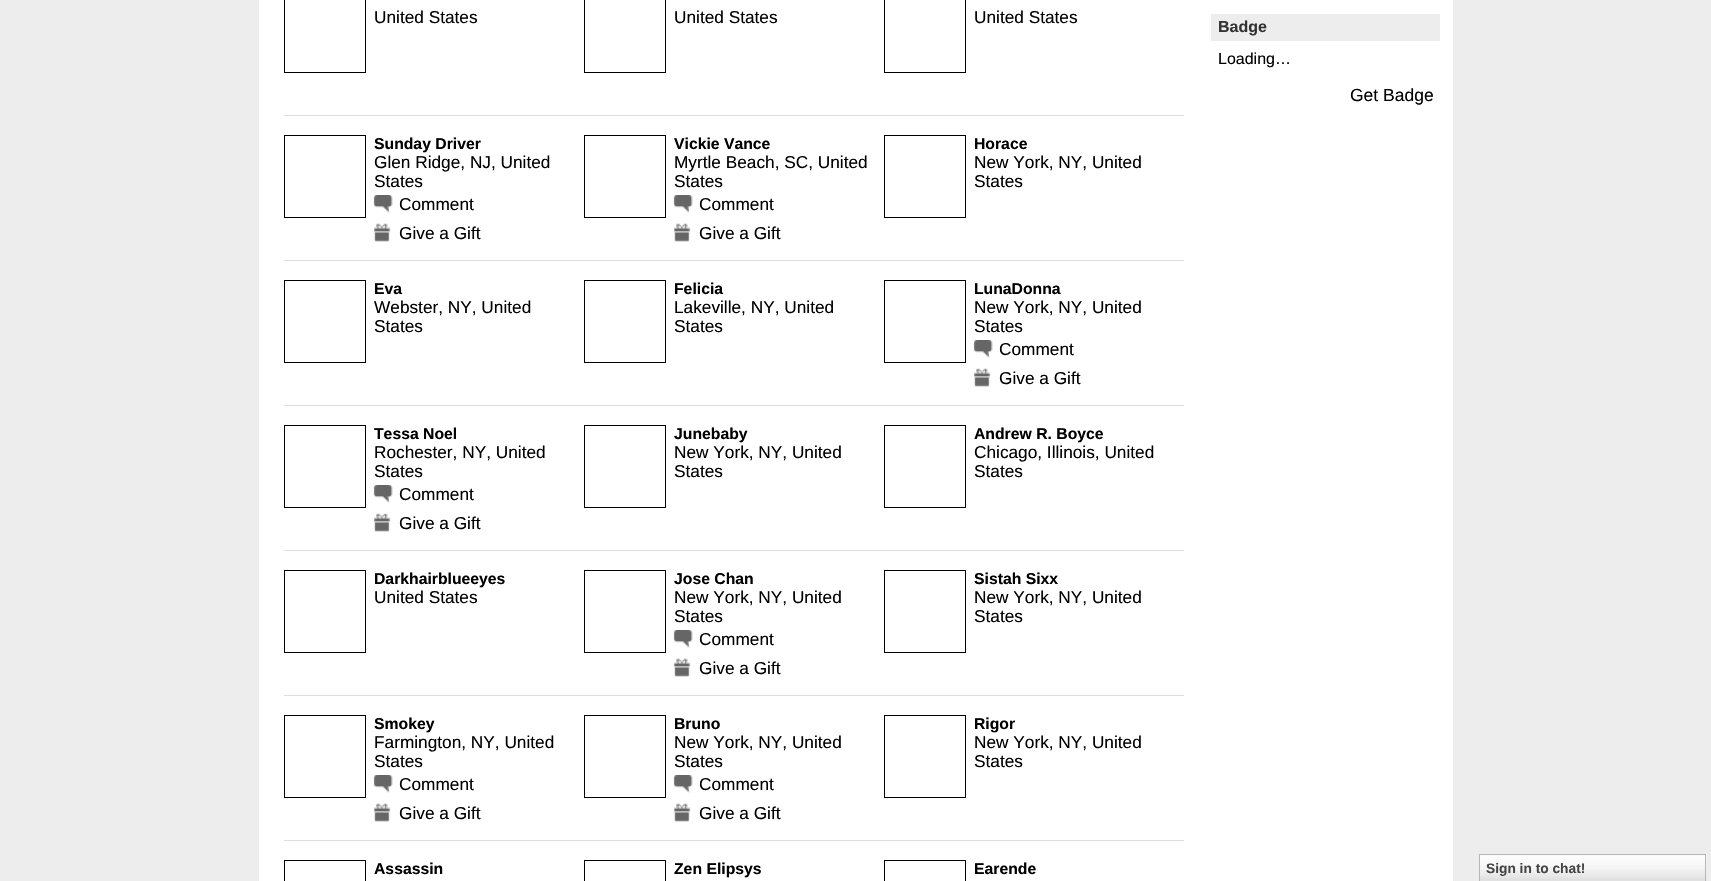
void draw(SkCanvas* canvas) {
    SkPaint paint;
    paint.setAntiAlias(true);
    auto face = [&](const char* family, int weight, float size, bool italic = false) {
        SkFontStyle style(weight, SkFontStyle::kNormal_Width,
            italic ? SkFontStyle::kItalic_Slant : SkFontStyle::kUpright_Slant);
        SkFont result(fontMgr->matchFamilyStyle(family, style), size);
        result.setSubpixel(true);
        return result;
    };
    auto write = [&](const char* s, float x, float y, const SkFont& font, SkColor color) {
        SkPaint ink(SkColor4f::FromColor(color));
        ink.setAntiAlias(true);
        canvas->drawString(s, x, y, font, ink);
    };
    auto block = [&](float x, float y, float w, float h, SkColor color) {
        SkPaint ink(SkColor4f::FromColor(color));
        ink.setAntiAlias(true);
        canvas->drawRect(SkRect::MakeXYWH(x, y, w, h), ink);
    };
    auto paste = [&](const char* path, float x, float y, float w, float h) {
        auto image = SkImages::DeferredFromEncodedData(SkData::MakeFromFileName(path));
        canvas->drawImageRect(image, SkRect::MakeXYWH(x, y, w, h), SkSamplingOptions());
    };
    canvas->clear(SkColorSetRGB(237, 237, 237));
    block(259, 0, 1194, 881, SK_ColorWHITE);
    block(284, 115, 900, 1, SkColorSetRGB(221, 221, 221));
    paint.setStyle(SkPaint::kStroke_Style);
    paint.setStrokeWidth(1);
    paint.setColor(SK_ColorBLACK);
    canvas->drawRect(SkRect::MakeXYWH(284.5f, -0.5f, 81, 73), paint);
    auto kFont1 = face("Liberation Sans", 400, 17.25f);
    write("United States", 374, 23, kFont1, SK_ColorBLACK);
    canvas->drawRect(SkRect::MakeXYWH(584.5f, -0.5f, 81, 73), paint);
    write("United States", 674, 23, kFont1, SK_ColorBLACK);
    canvas->drawRect(SkRect::MakeXYWH(884.5f, -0.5f, 81, 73), paint);
    write("United States", 974, 23, kFont1, SK_ColorBLACK);
    block(284, 260, 900, 1, SkColorSetRGB(221, 221, 221));
    canvas->drawRect(SkRect::MakeXYWH(284.5f, 135.5f, 81, 82), paint);
    auto kFont2 = face("Liberation Sans", 700, 15.75f);
    write("Sunday Driver", 374, 149, kFont2, SK_ColorBLACK);
    write("Glen Ridge, NJ, United", 374, 168, kFont1, SK_ColorBLACK);
    write("States", 374, 187, kFont1, SK_ColorBLACK);
    paste("pic1.png", 373, 195, 20, 18);
    write("Comment", 399, 210, kFont1, SK_ColorBLACK);
    paste("pic2.png", 373, 223, 18, 19);
    write("Give a Gift", 399, 239, kFont1, SK_ColorBLACK);
    canvas->drawRect(SkRect::MakeXYWH(584.5f, 135.5f, 81, 82), paint);
    write("Vickie Vance", 674, 149, kFont2, SK_ColorBLACK);
    write("Myrtle Beach, SC, United", 674, 168, kFont1, SK_ColorBLACK);
    write("States", 674, 187, kFont1, SK_ColorBLACK);
    paste("pic1.png", 673, 195, 20, 18);
    write("Comment", 699, 210, kFont1, SK_ColorBLACK);
    paste("pic2.png", 673, 223, 18, 19);
    write("Give a Gift", 699, 239, kFont1, SK_ColorBLACK);
    canvas->drawRect(SkRect::MakeXYWH(884.5f, 135.5f, 81, 82), paint);
    write("Horace", 974, 149, kFont2, SK_ColorBLACK);
    write("New York, NY, United", 974, 168, kFont1, SK_ColorBLACK);
    write("States", 974, 187, kFont1, SK_ColorBLACK);
    block(284, 405, 900, 1, SkColorSetRGB(221, 221, 221));
    canvas->drawRect(SkRect::MakeXYWH(284.5f, 280.5f, 81, 82), paint);
    write("Eva", 374, 294, kFont2, SK_ColorBLACK);
    write("Webster, NY, United", 374, 313, kFont1, SK_ColorBLACK);
    write("States", 374, 332, kFont1, SK_ColorBLACK);
    canvas->drawRect(SkRect::MakeXYWH(584.5f, 280.5f, 81, 82), paint);
    write("Felicia", 674, 294, kFont2, SK_ColorBLACK);
    write("Lakeville, NY, United", 674, 313, kFont1, SK_ColorBLACK);
    write("States", 674, 332, kFont1, SK_ColorBLACK);
    canvas->drawRect(SkRect::MakeXYWH(884.5f, 280.5f, 81, 82), paint);
    write("LunaDonna", 974, 294, kFont2, SK_ColorBLACK);
    write("New York, NY, United", 974, 313, kFont1, SK_ColorBLACK);
    write("States", 974, 332, kFont1, SK_ColorBLACK);
    paste("pic3.png", 973, 340, 20, 18);
    write("Comment", 999, 355, kFont1, SK_ColorBLACK);
    paste("pic2.png", 973, 368, 18, 19);
    write("Give a Gift", 999, 384, kFont1, SK_ColorBLACK);
    block(284, 550, 900, 1, SkColorSetRGB(221, 221, 221));
    canvas->drawRect(SkRect::MakeXYWH(284.5f, 425.5f, 81, 82), paint);
    write("Tessa Noel", 374, 439, kFont2, SK_ColorBLACK);
    write("Rochester, NY, United", 374, 458, kFont1, SK_ColorBLACK);
    write("States", 374, 477, kFont1, SK_ColorBLACK);
    paste("pic3.png", 373, 485, 20, 18);
    write("Comment", 399, 500, kFont1, SK_ColorBLACK);
    paste("pic2.png", 373, 513, 18, 19);
    write("Give a Gift", 399, 529, kFont1, SK_ColorBLACK);
    canvas->drawRect(SkRect::MakeXYWH(584.5f, 425.5f, 81, 82), paint);
    write("Junebaby", 674, 439, kFont2, SK_ColorBLACK);
    write("New York, NY, United", 674, 458, kFont1, SK_ColorBLACK);
    write("States", 674, 477, kFont1, SK_ColorBLACK);
    canvas->drawRect(SkRect::MakeXYWH(884.5f, 425.5f, 81, 82), paint);
    write("Andrew R. Boyce", 974, 439, kFont2, SK_ColorBLACK);
    write("Chicago, Illinois, United", 974, 458, kFont1, SK_ColorBLACK);
    write("States", 974, 477, kFont1, SK_ColorBLACK);
    block(284, 695, 900, 1, SkColorSetRGB(221, 221, 221));
    canvas->drawRect(SkRect::MakeXYWH(284.5f, 570.5f, 81, 82), paint);
    write("Darkhairblueeyes", 374, 584, kFont2, SK_ColorBLACK);
    write("United States", 374, 603, kFont1, SK_ColorBLACK);
    canvas->drawRect(SkRect::MakeXYWH(584.5f, 570.5f, 81, 82), paint);
    write("Jose Chan", 674, 584, kFont2, SK_ColorBLACK);
    write("New York, NY, United", 674, 603, kFont1, SK_ColorBLACK);
    write("States", 674, 622, kFont1, SK_ColorBLACK);
    paste("pic3.png", 673, 630, 20, 18);
    write("Comment", 699, 645, kFont1, SK_ColorBLACK);
    paste("pic2.png", 673, 658, 18, 19);
    write("Give a Gift", 699, 674, kFont1, SK_ColorBLACK);
    canvas->drawRect(SkRect::MakeXYWH(884.5f, 570.5f, 81, 82), paint);
    write("Sistah Sixx", 974, 584, kFont2, SK_ColorBLACK);
    write("New York, NY, United", 974, 603, kFont1, SK_ColorBLACK);
    write("States", 974, 622, kFont1, SK_ColorBLACK);
    block(284, 840, 900, 1, SkColorSetRGB(221, 221, 221));
    canvas->drawRect(SkRect::MakeXYWH(284.5f, 715.5f, 81, 82), paint);
    write("Smokey", 374, 729, kFont2, SK_ColorBLACK);
    write("Farmington, NY, United", 374, 748, kFont1, SK_ColorBLACK);
    write("States", 374, 767, kFont1, SK_ColorBLACK);
    paste("pic3.png", 373, 775, 20, 18);
    write("Comment", 399, 790, kFont1, SK_ColorBLACK);
    paste("pic2.png", 373, 803, 18, 19);
    write("Give a Gift", 399, 819, kFont1, SK_ColorBLACK);
    canvas->drawRect(SkRect::MakeXYWH(584.5f, 715.5f, 81, 82), paint);
    write("Bruno", 674, 729, kFont2, SK_ColorBLACK);
    write("New York, NY, United", 674, 748, kFont1, SK_ColorBLACK);
    write("States", 674, 767, kFont1, SK_ColorBLACK);
    paste("pic3.png", 673, 775, 20, 18);
    write("Comment", 699, 790, kFont1, SK_ColorBLACK);
    paste("pic2.png", 673, 803, 18, 19);
    write("Give a Gift", 699, 819, kFont1, SK_ColorBLACK);
    canvas->drawRect(SkRect::MakeXYWH(884.5f, 715.5f, 81, 82), paint);
    write("Rigor", 974, 729, kFont2, SK_ColorBLACK);
    write("New York, NY, United", 974, 748, kFont1, SK_ColorBLACK);
    write("States", 974, 767, kFont1, SK_ColorBLACK);
    canvas->drawRect(SkRect::MakeXYWH(284.5f, 860.5f, 81, 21), paint);
    write("Assassin", 374, 874, kFont2, SK_ColorBLACK);
    canvas->drawRect(SkRect::MakeXYWH(584.5f, 860.5f, 81, 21), paint);
    write("Zen Elipsys", 674, 874, kFont2, SK_ColorBLACK);
    canvas->drawRect(SkRect::MakeXYWH(884.5f, 860.5f, 81, 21), paint);
    write("Earende", 974, 874, kFont2, SK_ColorBLACK);
    block(1211, 14, 229, 27, SkColorSetRGB(237, 237, 237));
    auto kFont3 = face("Liberation Sans", 700, 16);
    write("Badge", 1218, 32, kFont3, SkColorSetRGB(51, 51, 51));
    auto kFont4 = face("Liberation Sans", 400, 16);
    write("Loading…", 1218, 64, kFont4, SK_ColorBLACK);
    auto kFont5 = face("Liberation Sans", 400, 17.5f);
    write("Get Badge", 1350, 101, kFont5, SK_ColorBLACK);
    paste("pic4.png", 1480, 855, 227, 26);
    paint.setColor(SkColorSetRGB(183, 183, 183));
    canvas->drawRect(SkRect::MakeXYWH(1479.5f, 854.5f, 226, 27), paint);
    auto kFont6 = face("Liberation Sans", 700, 13.75f);
    write("Sign in to chat!", 1486, 873, kFont6, SkColorSetRGB(69, 69, 69));
}
